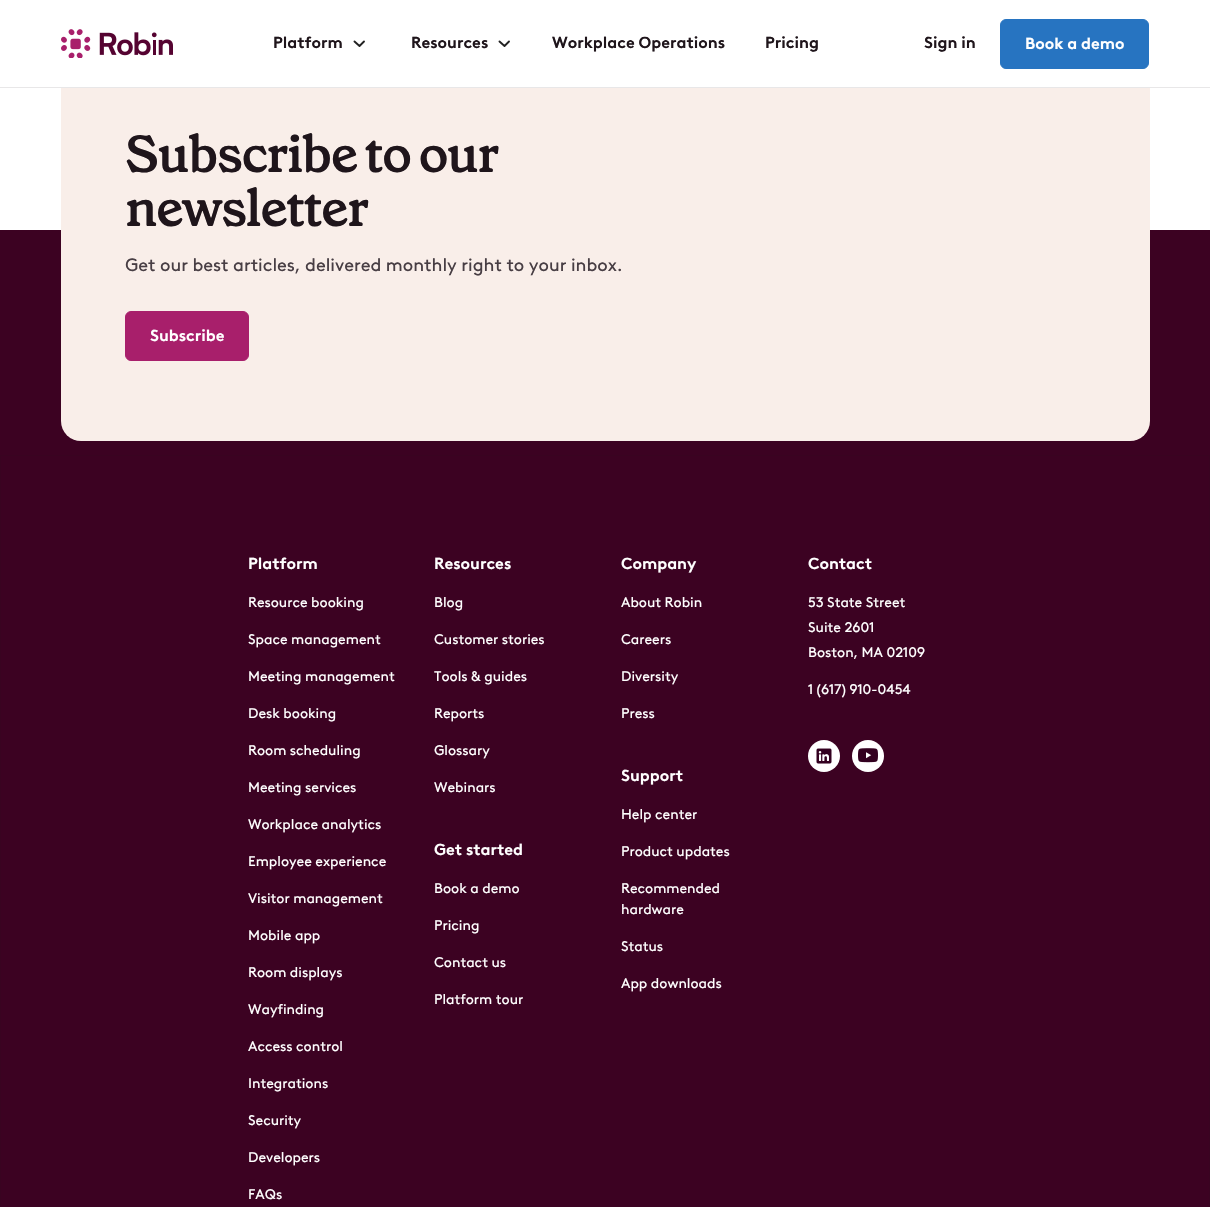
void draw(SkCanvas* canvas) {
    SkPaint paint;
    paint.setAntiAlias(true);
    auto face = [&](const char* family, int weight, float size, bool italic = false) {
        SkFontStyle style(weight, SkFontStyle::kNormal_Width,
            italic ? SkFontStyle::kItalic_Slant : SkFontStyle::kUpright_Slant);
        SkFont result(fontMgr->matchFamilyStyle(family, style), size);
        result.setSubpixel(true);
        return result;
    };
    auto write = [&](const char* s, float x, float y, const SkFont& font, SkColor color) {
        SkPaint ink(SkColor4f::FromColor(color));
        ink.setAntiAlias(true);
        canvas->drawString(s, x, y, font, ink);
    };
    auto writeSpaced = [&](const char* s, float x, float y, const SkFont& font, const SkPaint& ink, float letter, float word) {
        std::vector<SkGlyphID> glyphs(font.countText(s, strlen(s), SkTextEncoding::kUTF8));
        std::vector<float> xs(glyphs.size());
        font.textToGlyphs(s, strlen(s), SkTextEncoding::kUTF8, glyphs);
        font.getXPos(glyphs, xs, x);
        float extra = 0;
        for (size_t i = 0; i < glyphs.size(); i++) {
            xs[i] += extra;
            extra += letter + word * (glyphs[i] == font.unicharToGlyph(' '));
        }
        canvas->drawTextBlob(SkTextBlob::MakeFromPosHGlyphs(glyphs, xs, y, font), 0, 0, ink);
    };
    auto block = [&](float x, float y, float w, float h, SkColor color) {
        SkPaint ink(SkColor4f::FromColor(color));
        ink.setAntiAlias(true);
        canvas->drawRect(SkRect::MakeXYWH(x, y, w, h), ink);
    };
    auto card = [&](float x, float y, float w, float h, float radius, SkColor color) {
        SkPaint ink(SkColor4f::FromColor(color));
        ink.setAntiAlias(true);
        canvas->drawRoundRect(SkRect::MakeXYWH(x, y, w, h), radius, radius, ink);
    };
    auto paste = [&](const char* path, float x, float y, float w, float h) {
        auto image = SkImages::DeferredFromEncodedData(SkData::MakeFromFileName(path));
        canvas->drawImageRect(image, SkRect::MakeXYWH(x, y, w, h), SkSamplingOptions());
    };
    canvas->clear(SK_ColorWHITE);
    block(0, 230, 1210, 225, SkColorSetRGB(60, 2, 34));
    card(61, 48, 1089, 393, 20, SkColorSetRGB(249, 238, 233));
    block(61, 48, 1089, 39, SK_ColorWHITE);
    block(0, 87, 1210, 1, SkColorSetRGB(232, 231, 232));
    paste("pic1.png", 61, 29, 112, 29);
    auto kFont1 = face("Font", 700, 16);
    write("Platform", 273, 48, kFont1, SkColorSetRGB(31, 21, 27));
    paint.setStyle(SkPaint::kStroke_Style);
    paint.setStrokeWidth(1.9f);
    paint.setStrokeCap(SkPaint::kRound_Cap);
    paint.setStrokeJoin(SkPaint::kRound_Join);
    paint.setColor(SkColorSetRGB(34, 34, 34));
    canvas->drawPath(SkPathBuilder().moveTo(364, 41.5f).lineTo(359.5f, 46).lineTo(354.5f, 41.5f).detach(), paint);
    write("Resources", 411, 48, kFont1, SkColorSetRGB(31, 21, 27));
    canvas->drawPath(SkPathBuilder().moveTo(509, 41.5f).lineTo(504.5f, 46).lineTo(499.5f, 41.5f).detach(), paint);
    write("Workplace Operations", 552, 48, kFont1, SkColorSetRGB(31, 21, 27));
    write("Pricing", 765, 48, kFont1, SkColorSetRGB(31, 21, 27));
    write("Sign in", 924, 48, kFont1, SkColorSetRGB(31, 21, 27));
    paint.setStyle(SkPaint::kFill_Style);
    paint.setColor(SkColorSetRGB(39, 116, 193));
    canvas->drawRoundRect(SkRect::MakeXYWH(1000.5f, 19.5f, 148, 49), 5.5f, 5.5f, paint);
    paint.setStyle(SkPaint::kStroke_Style);
    paint.setStrokeWidth(1);
    paint.setStrokeCap(SkPaint::kButt_Cap);
    paint.setStrokeJoin(SkPaint::kMiter_Join);
    canvas->drawRoundRect(SkRect::MakeXYWH(1000.5f, 19.5f, 148, 49), 5.5f, 5.5f, paint);
    write("Book a demo", 1025, 49, kFont1, SK_ColorWHITE);
    auto kFont2 = face("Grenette", 600, 52);
    paint.setStyle(SkPaint::kFill_Style);
    paint.setColor(SkColorSetRGB(31, 21, 27));
    writeSpaced("Subscribe to our", 125, 172, kFont2, paint, -1.5f, 0);
    writeSpaced("newsletter", 125, 226, kFont2, paint, -1.5f, 0);
    auto kFont3 = face("Font", 400, 18);
    write("Get our best articles, delivered monthly right to your inbox.", 125, 271, kFont3, SkColorSetRGB(72, 62, 68));
    paint.setColor(SkColorSetRGB(168, 31, 107));
    canvas->drawRoundRect(SkRect::MakeXYWH(125.5f, 311.5f, 123, 49), 5.5f, 5.5f, paint);
    paint.setStyle(SkPaint::kStroke_Style);
    canvas->drawRoundRect(SkRect::MakeXYWH(125.5f, 311.5f, 123, 49), 5.5f, 5.5f, paint);
    write("Subscribe", 150, 341, kFont1, SK_ColorWHITE);
    paint.setStyle(SkPaint::kFill_Style);
    paint.setColor(SkColorSetRGB(60, 2, 34));
    canvas->drawRect(SkRect::MakeXYWH(0.5f, 455.5f, 1209, 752), paint);
    paint.setStyle(SkPaint::kStroke_Style);
    paint.setColor(SkColorSetRGB(57, 4, 33));
    canvas->drawRect(SkRect::MakeXYWH(0.5f, 455.5f, 1209, 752), paint);
    write("Platform", 248, 569, kFont1, SK_ColorWHITE);
    auto kFont4 = face("Font", 400, 14);
    write("Resource booking", 248, 607, kFont4, SK_ColorWHITE);
    write("Space management", 248, 644, kFont4, SK_ColorWHITE);
    write("Meeting management", 248, 681, kFont4, SK_ColorWHITE);
    write("Desk booking", 248, 718, kFont4, SK_ColorWHITE);
    write("Room scheduling", 248, 755, kFont4, SK_ColorWHITE);
    write("Meeting services", 248, 792, kFont4, SK_ColorWHITE);
    write("Workplace analytics", 248, 829, kFont4, SK_ColorWHITE);
    write("Employee experience", 248, 866, kFont4, SK_ColorWHITE);
    write("Visitor management", 248, 903, kFont4, SK_ColorWHITE);
    write("Mobile app", 248, 940, kFont4, SK_ColorWHITE);
    write("Room displays", 248, 977, kFont4, SK_ColorWHITE);
    write("Wayfinding", 248, 1014, kFont4, SK_ColorWHITE);
    write("Access control", 248, 1051, kFont4, SK_ColorWHITE);
    write("Integrations", 248, 1088, kFont4, SK_ColorWHITE);
    write("Security", 248, 1125, kFont4, SK_ColorWHITE);
    write("Developers", 248, 1162, kFont4, SK_ColorWHITE);
    write("FAQs", 248, 1199, kFont4, SK_ColorWHITE);
    write("Resources", 434, 569, kFont1, SK_ColorWHITE);
    write("Blog", 434, 607, kFont4, SK_ColorWHITE);
    write("Customer stories", 434, 644, kFont4, SK_ColorWHITE);
    write("Tools & guides", 434, 681, kFont4, SK_ColorWHITE);
    write("Reports", 434, 718, kFont4, SK_ColorWHITE);
    write("Glossary", 434, 755, kFont4, SK_ColorWHITE);
    write("Webinars", 434, 792, kFont4, SK_ColorWHITE);
    write("Get started", 434, 855, kFont1, SK_ColorWHITE);
    write("Book a demo", 434, 893, kFont4, SK_ColorWHITE);
    write("Pricing", 434, 930, kFont4, SK_ColorWHITE);
    write("Contact us", 434, 967, kFont4, SK_ColorWHITE);
    write("Platform tour", 434, 1004, kFont4, SK_ColorWHITE);
    write("Company", 621, 569, kFont1, SK_ColorWHITE);
    write("About Robin", 621, 607, kFont4, SK_ColorWHITE);
    write("Careers", 621, 644, kFont4, SK_ColorWHITE);
    write("Diversity", 621, 681, kFont4, SK_ColorWHITE);
    write("Press", 621, 718, kFont4, SK_ColorWHITE);
    write("Support", 621, 781, kFont1, SK_ColorWHITE);
    write("Help center", 621, 819, kFont4, SK_ColorWHITE);
    write("Product updates", 621, 856, kFont4, SK_ColorWHITE);
    write("Recommended", 621, 893, kFont4, SK_ColorWHITE);
    write("hardware", 621, 914, kFont4, SK_ColorWHITE);
    write("Status", 621, 951, kFont4, SK_ColorWHITE);
    write("App downloads", 621, 988, kFont4, SK_ColorWHITE);
    write("Contact", 808, 569, kFont1, SK_ColorWHITE);
    write("53 State Street", 808, 607, kFont4, SK_ColorWHITE);
    write("Suite 2601", 808, 632, kFont4, SK_ColorWHITE);
    write("Boston, MA 02109", 808, 657, kFont4, SK_ColorWHITE);
    write("1 (617) 910-0454", 808, 694, kFont4, SK_ColorWHITE);
    paint.setStyle(SkPaint::kFill_Style);
    paint.setColor(SK_ColorWHITE);
    canvas->drawCircle(824, 756, 16, paint);
    paste("pic2.png", 816, 748, 16, 16);
    canvas->drawCircle(868, 756, 16, paint);
    paste("pic3.png", 858, 748, 20, 15);
}
